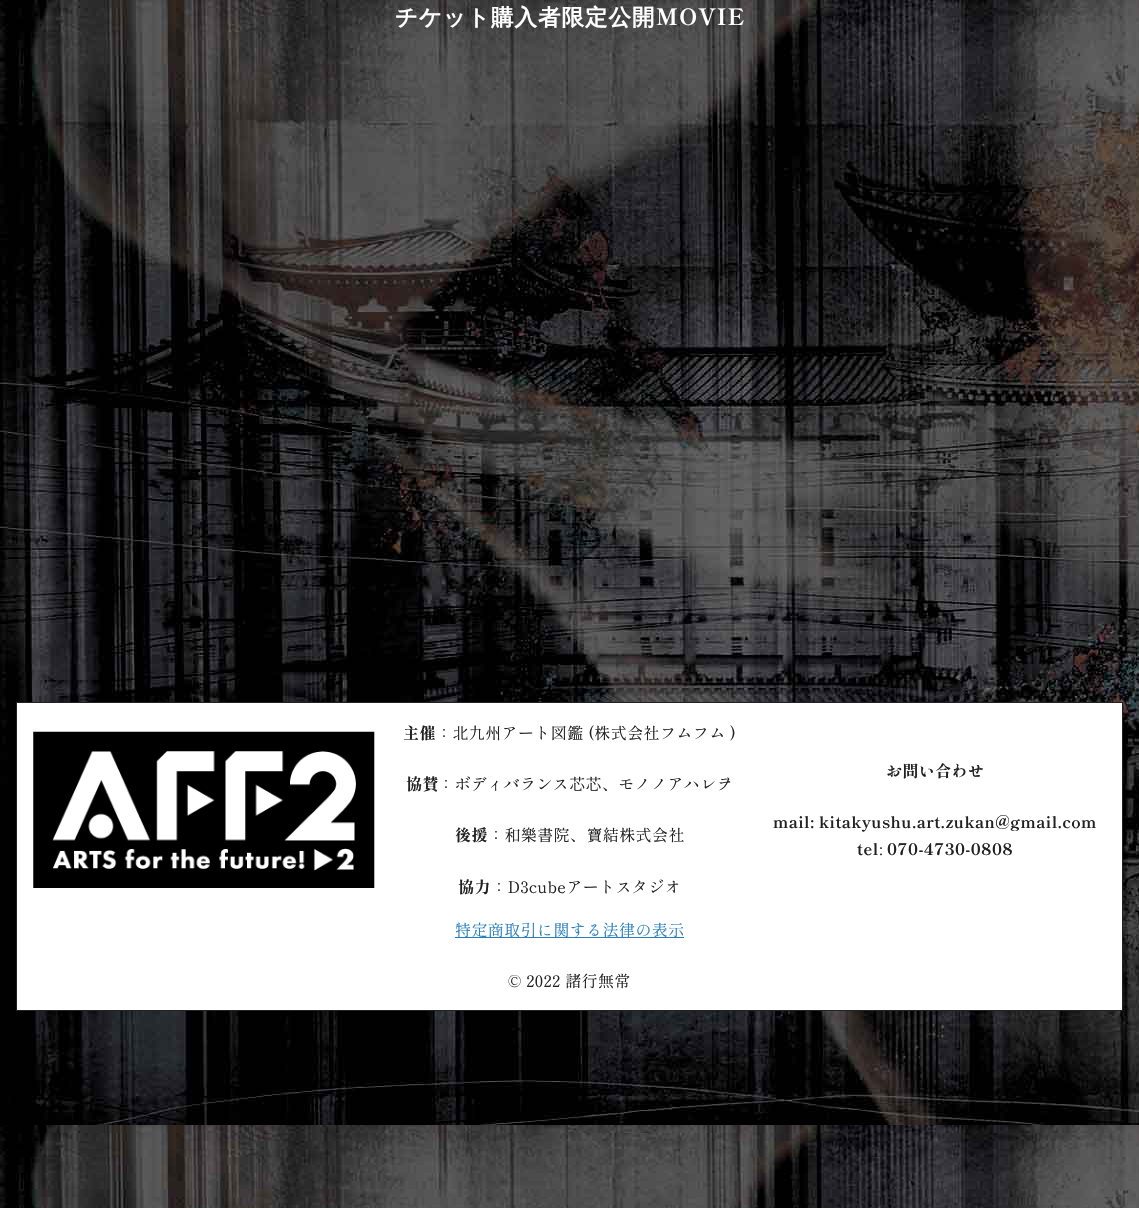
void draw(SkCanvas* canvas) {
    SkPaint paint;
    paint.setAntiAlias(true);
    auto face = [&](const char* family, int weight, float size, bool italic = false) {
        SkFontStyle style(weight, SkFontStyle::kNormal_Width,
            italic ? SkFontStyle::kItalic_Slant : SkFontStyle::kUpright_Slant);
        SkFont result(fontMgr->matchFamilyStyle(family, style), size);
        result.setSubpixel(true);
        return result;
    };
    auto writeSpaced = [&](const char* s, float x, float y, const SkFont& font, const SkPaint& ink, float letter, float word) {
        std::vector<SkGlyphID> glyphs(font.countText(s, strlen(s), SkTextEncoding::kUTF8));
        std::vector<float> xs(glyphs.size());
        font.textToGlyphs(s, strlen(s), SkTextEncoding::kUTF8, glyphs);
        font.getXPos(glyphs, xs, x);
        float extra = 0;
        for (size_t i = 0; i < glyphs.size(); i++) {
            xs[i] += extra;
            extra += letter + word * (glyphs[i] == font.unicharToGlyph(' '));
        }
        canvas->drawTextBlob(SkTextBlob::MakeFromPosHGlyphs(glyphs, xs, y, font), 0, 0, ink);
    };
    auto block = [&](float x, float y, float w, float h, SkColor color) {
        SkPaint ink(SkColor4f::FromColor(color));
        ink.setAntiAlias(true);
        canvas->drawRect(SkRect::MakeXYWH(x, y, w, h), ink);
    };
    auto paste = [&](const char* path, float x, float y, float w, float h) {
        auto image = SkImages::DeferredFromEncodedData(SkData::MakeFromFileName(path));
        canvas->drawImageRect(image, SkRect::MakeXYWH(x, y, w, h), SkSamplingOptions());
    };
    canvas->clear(SK_ColorWHITE);
    paste("pic1.png", 0, 0, 1139, 1208);
    auto kFont1 = face("WenQuanYi Zen Hei", 700, 22.4f);
    paint.setColor(SK_ColorWHITE);
    writeSpaced("チケット購⼊者限定公開", 395, 25, kFont1, paint, 1.1f, 0);
    auto kFont2 = face("Shippori Mincho B1", 700, 22.4f);
    writeSpaced("MOVIE", 656, 25, kFont2, paint, 1.1f, 0);
    canvas->drawRect(SkRect::MakeXYWH(16.5f, 702.5f, 1106, 308), paint);
    paint.setStyle(SkPaint::kStroke_Style);
    paint.setStrokeWidth(1);
    paint.setColor(SkColorSetRGB(34, 34, 34));
    canvas->drawRect(SkRect::MakeXYWH(16.5f, 702.5f, 1106, 308), paint);
    paste("pic2.png", 33, 731, 342, 157);
    auto kFont3 = face("Shippori Mincho B1", 700, 16);
    paint.setStyle(SkPaint::kFill_Style);
    writeSpaced("主催", 403, 739, kFont3, paint, 0.4f, 0);
    auto kFont4 = face("Shippori Mincho B1", 400, 16);
    writeSpaced("：北九州アート図鑑 (株式会社フムフム )", 436, 739, kFont4, paint, 0.4f, 0);
    writeSpaced("協賛", 406, 790, kFont3, paint, 0.4f, 0);
    writeSpaced("：ボディバランス芯芯、モノノアハレヲ", 438, 790, kFont4, paint, 0.4f, 0);
    writeSpaced("後援", 455, 841, kFont3, paint, 0.4f, 0);
    writeSpaced("：和樂書院、寶結株式会社", 488, 841, kFont4, paint, 0.4f, 0);
    writeSpaced("協力", 458, 893, kFont3, paint, 0.4f, 0);
    writeSpaced("：D3cubeアートスタジオ", 491, 893, kFont4, paint, 0.4f, 0);
    writeSpaced("お問い合わせ", 886, 777, kFont3, paint, 0.4f, 0);
    writeSpaced("mail: kitakyushu.art.zukan@gmail.com", 773, 828, kFont3, paint, 0.4f, 0);
    writeSpaced("tel", 857, 855, kFont3, paint, 0.4f, 0);
    writeSpaced(":", 879, 855, kFont4, paint, 0.4f, 0);
    writeSpaced("070-4730-0808", 887, 855, kFont3, paint, 0.4f, 0);
    block(455, 937, 229, 1, SkColorSetRGB(41, 128, 185));
    paint.setColor(SkColorSetRGB(41, 128, 185));
    writeSpaced("特定商取引に関する法律の表示", 455, 936, kFont4, paint, 0.4f, 0);
    paint.setColor(SkColorSetRGB(34, 34, 34));
    writeSpaced("© 2022 諸行無常", 508, 987, kFont4, paint, 0.4f, 0);
}
